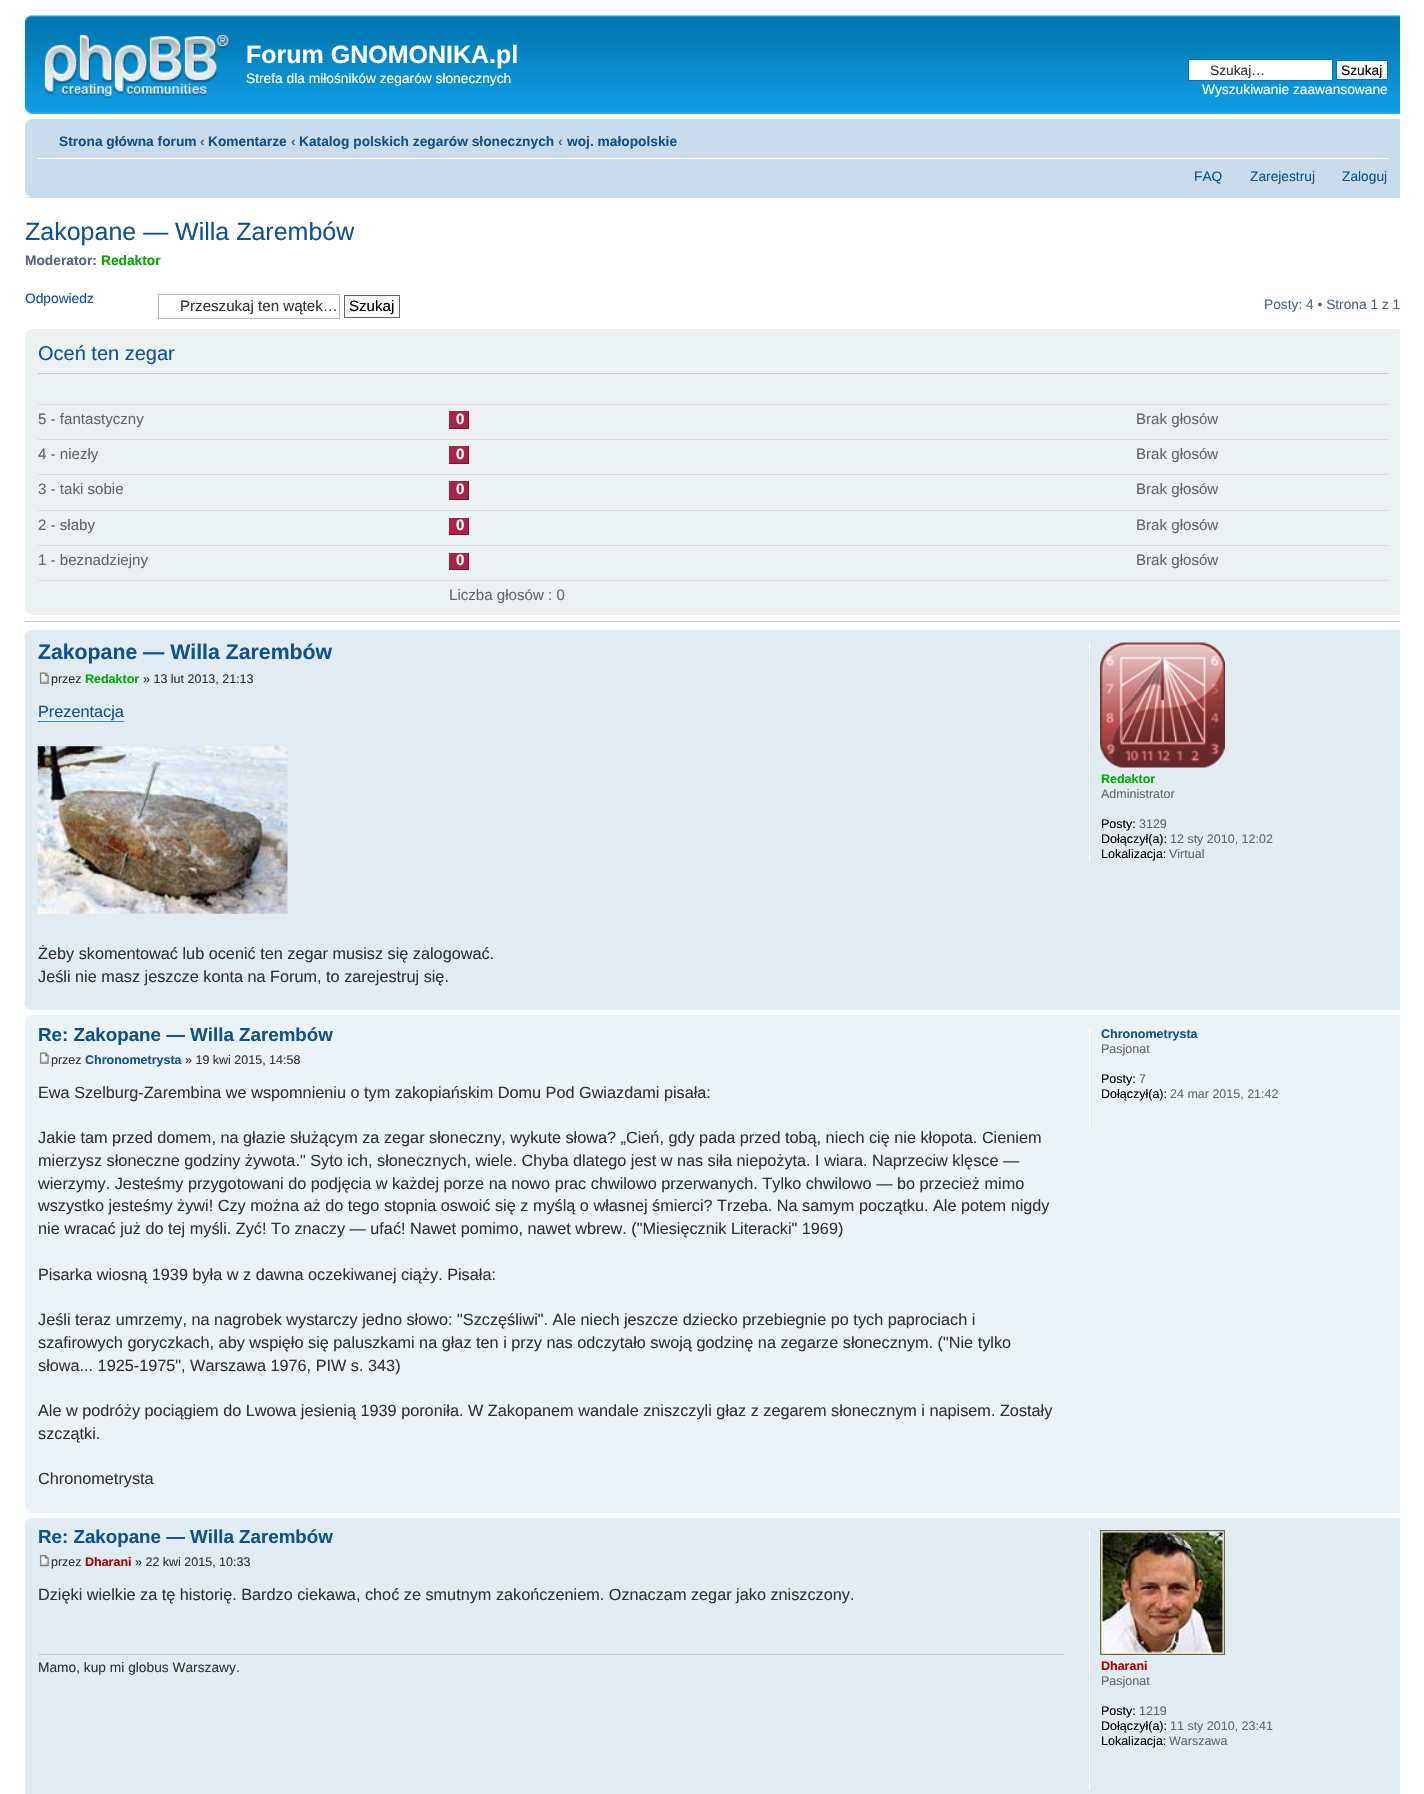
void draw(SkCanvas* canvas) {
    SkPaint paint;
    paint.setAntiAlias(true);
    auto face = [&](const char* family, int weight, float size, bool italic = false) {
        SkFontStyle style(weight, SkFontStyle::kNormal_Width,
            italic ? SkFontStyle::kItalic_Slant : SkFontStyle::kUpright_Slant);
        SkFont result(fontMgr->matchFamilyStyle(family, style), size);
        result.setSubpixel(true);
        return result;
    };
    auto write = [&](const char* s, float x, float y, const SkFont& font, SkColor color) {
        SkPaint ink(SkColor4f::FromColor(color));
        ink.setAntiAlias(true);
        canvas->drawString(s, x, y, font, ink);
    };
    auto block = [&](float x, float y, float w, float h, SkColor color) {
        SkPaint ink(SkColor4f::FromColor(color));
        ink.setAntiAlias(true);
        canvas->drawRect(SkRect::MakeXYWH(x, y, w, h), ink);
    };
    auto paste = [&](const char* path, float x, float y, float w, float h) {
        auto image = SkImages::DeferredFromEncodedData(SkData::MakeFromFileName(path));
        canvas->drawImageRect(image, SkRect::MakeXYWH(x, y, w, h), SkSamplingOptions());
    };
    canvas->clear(SK_ColorWHITE);
    paste("pic1.png", 25, 15, 1375, 99);
    paste("pic2.png", 25, 15, 7, 7);
    paste("pic3.png", 44, 34, 185, 64);
    auto kFont1 = face("Liberation Sans", 700, 25);
    write("Forum GNOMONIKA.pl", 246, 63, kFont1, SK_ColorWHITE);
    auto kFont2 = face("Liberation Sans", 400, 13.75f);
    write("Strefa dla miłośników zegarów słonecznych", 246, 83, kFont2, SK_ColorWHITE);
    paint.setColor(SK_ColorWHITE);
    canvas->drawRect(SkRect::MakeXYWH(1188.5f, 59.5f, 144, 21), paint);
    paint.setStyle(SkPaint::kStroke_Style);
    paint.setStrokeWidth(1);
    paint.setColor(SkColorSetRGB(0, 117, 176));
    canvas->drawRect(SkRect::MakeXYWH(1188.5f, 59.5f, 144, 21), paint);
    write("Szukaj…", 1210, 75, kFont2, SkColorSetRGB(51, 51, 51));
    paint.setStyle(SkPaint::kFill_Style);
    paint.setColor(SkColorSetRGB(250, 250, 250));
    canvas->drawRect(SkRect::MakeXYWH(1336.5f, 60.5f, 51, 19), paint);
    paint.setStyle(SkPaint::kStroke_Style);
    paint.setColor(SkColorSetRGB(0, 117, 176));
    canvas->drawRect(SkRect::MakeXYWH(1336.5f, 60.5f, 51, 19), paint);
    write("Szukaj", 1341, 75, kFont2, SK_ColorBLACK);
    write("Wyszukiwanie zaawansowane", 1202, 94, kFont2, SK_ColorWHITE);
    paste("pic4.png", 25, 107, 7, 7);
    block(25, 119, 1375, 79, SkColorSetRGB(202, 220, 235));
    paste("pic5.png", 25, 119, 7, 6);
    block(38, 158, 1350, 1, SK_ColorWHITE);
    auto kFont3 = face("Liberation Sans", 700, 13.75f);
    write("Strona główna forum", 59, 146, kFont3, SkColorSetRGB(16, 82, 137));
    write("‹", 200, 146, kFont3, SkColorSetRGB(83, 100, 130));
    write("Komentarze", 208, 146, kFont3, SkColorSetRGB(16, 82, 137));
    write("‹", 291, 146, kFont3, SkColorSetRGB(83, 100, 130));
    write("Katalog polskich zegarów słonecznych", 299, 146, kFont3, SkColorSetRGB(16, 82, 137));
    write("‹", 558, 146, kFont3, SkColorSetRGB(83, 100, 130));
    write("woj. małopolskie", 567, 146, kFont3, SkColorSetRGB(16, 82, 137));
    write("FAQ", 1194, 181, kFont2, SkColorSetRGB(16, 82, 137));
    write("Zarejestruj", 1250, 181, kFont2, SkColorSetRGB(16, 82, 137));
    write("Zaloguj", 1342, 181, kFont2, SkColorSetRGB(16, 82, 137));
    paste("pic6.png", 25, 191, 6, 7);
    auto kFont4 = face("Liberation Sans", 400, 25);
    write("Zakopane — Willa Zarembów", 25, 240, kFont4, SkColorSetRGB(16, 82, 137));
    write("Moderator:", 25, 265, kFont3, SkColorSetRGB(83, 100, 130));
    write("Redaktor", 101, 265, kFont3, SkColorSetRGB(0, 170, 0));
    write("Odpowiedz", 25, 303, kFont2, SkColorSetRGB(16, 82, 137));
    paint.setColor(SkColorSetRGB(180, 186, 192));
    canvas->drawRect(SkRect::MakeXYWH(158.5f, 294.5f, 181, 24), paint);
    auto kFont5 = face("Liberation Sans", 400, 15.1f);
    write("Przeszukaj ten wątek…", 180, 311, kFont5, SkColorSetRGB(51, 51, 51));
    paint.setStyle(SkPaint::kFill_Style);
    paint.setColor(SkColorSetRGB(250, 250, 250));
    canvas->drawRect(SkRect::MakeXYWH(344.5f, 295.5f, 55, 22), paint);
    paint.setStyle(SkPaint::kStroke_Style);
    paint.setColor(SkColorSetRGB(102, 102, 102));
    canvas->drawRect(SkRect::MakeXYWH(344.5f, 295.5f, 55, 22), paint);
    write("Szukaj", 349, 311, kFont5, SK_ColorBLACK);
    write("Posty: 4 • Strona 1 z 1", 1264, 309, kFont2, SkColorSetRGB(83, 100, 130));
    block(25, 329, 1375, 286, SkColorSetRGB(236, 241, 243));
    paste("pic7.png", 25, 329, 6, 6);
    block(38, 373, 1350, 1, SkColorSetRGB(204, 204, 204));
    auto kFont6 = face("Liberation Sans", 400, 20);
    write("Oceń ten zegar", 38, 360, kFont6, SkColorSetRGB(17, 80, 152));
    block(38, 404, 1350, 1, SkColorSetRGB(220, 222, 226));
    write("5 - fantastyczny", 38, 424, kFont5, SkColorSetRGB(102, 102, 102));
    block(449, 411, 19, 17, SkColorSetRGB(170, 35, 70));
    block(468, 411, 1, 18, SkColorSetRGB(116, 22, 44));
    block(449, 428, 20, 1, SkColorSetRGB(116, 22, 44));
    auto kFont7 = face("Liberation Sans", 700, 15.1f);
    write("0", 456, 424, kFont7, SK_ColorWHITE);
    write("Brak głosów", 1136, 424, kFont5, SkColorSetRGB(102, 102, 102));
    block(38, 439, 1350, 1, SkColorSetRGB(220, 222, 226));
    write("4 - niezły", 38, 459, kFont5, SkColorSetRGB(102, 102, 102));
    block(449, 446, 19, 17, SkColorSetRGB(170, 35, 70));
    block(468, 446, 1, 18, SkColorSetRGB(116, 22, 44));
    block(449, 463, 20, 1, SkColorSetRGB(116, 22, 44));
    write("0", 456, 459, kFont7, SK_ColorWHITE);
    write("Brak głosów", 1136, 459, kFont5, SkColorSetRGB(102, 102, 102));
    block(38, 474, 1350, 1, SkColorSetRGB(220, 222, 226));
    write("3 - taki sobie", 38, 494, kFont5, SkColorSetRGB(102, 102, 102));
    block(449, 481, 19, 18, SkColorSetRGB(170, 35, 70));
    block(468, 481, 1, 19, SkColorSetRGB(116, 22, 44));
    block(449, 499, 20, 1, SkColorSetRGB(116, 22, 44));
    write("0", 456, 494, kFont7, SK_ColorWHITE);
    write("Brak głosów", 1136, 494, kFont5, SkColorSetRGB(102, 102, 102));
    block(38, 510, 1350, 1, SkColorSetRGB(220, 222, 226));
    write("2 - słaby", 38, 530, kFont5, SkColorSetRGB(102, 102, 102));
    block(449, 518, 19, 16, SkColorSetRGB(170, 35, 70));
    block(468, 518, 1, 17, SkColorSetRGB(116, 22, 44));
    block(449, 534, 20, 1, SkColorSetRGB(116, 22, 44));
    write("0", 456, 530, kFont7, SK_ColorWHITE);
    write("Brak głosów", 1136, 530, kFont5, SkColorSetRGB(102, 102, 102));
    block(38, 545, 1350, 1, SkColorSetRGB(220, 222, 226));
    write("1 - beznadziejny", 38, 565, kFont5, SkColorSetRGB(102, 102, 102));
    block(449, 553, 19, 16, SkColorSetRGB(170, 35, 70));
    block(468, 553, 1, 17, SkColorSetRGB(116, 22, 44));
    block(449, 569, 20, 1, SkColorSetRGB(116, 22, 44));
    write("0", 456, 565, kFont7, SK_ColorWHITE);
    write("Brak głosów", 1136, 565, kFont5, SkColorSetRGB(102, 102, 102));
    block(38, 580, 1350, 1, SkColorSetRGB(220, 222, 226));
    write("Liczba głosów : 0", 449, 600, kFont5, SkColorSetRGB(102, 102, 102));
    paste("pic8.png", 25, 609, 6, 6);
    block(25, 621, 1375, 1, SkColorSetRGB(204, 204, 204));
    block(25, 630, 1375, 380, SkColorSetRGB(225, 235, 242));
    paste("pic9.png", 25, 630, 6, 6);
    auto kFont8 = face("Liberation Sans", 700, 21.25f);
    write("Zakopane — Willa Zarembów", 38, 659, kFont8, SkColorSetRGB(16, 82, 137));
    paste("pic10.png", 39, 672, 10, 12);
    auto kFont9 = face("Liberation Sans", 400, 12.5f);
    write("przez", 51, 683, kFont9, SkColorSetRGB(51, 51, 51));
    auto kFont10 = face("Liberation Sans", 700, 12.5f);
    write("Redaktor", 85, 683, kFont10, SkColorSetRGB(0, 170, 0));
    write("» 13 lut 2013, 21:13", 143, 683, kFont9, SkColorSetRGB(51, 51, 51));
    auto kFont11 = face("Liberation Sans", 400, 16.25f);
    write("Prezentacja", 38, 717, kFont11, SkColorSetRGB(16, 82, 137));
    block(38, 721, 86, 1, SkColorSetRGB(54, 138, 210));
    paste("pic11.png", 37, 746, 251, 168);
    write("Żeby skomentować lub ocenić ten zegar musisz się zalogować.", 38, 959, kFont11, SkColorSetRGB(51, 51, 51));
    write("Jeśli nie masz jeszcze konta na Forum, to zarejestruj się.", 38, 982, kFont11, SkColorSetRGB(51, 51, 51));
    block(1089, 643, 1, 218, SK_ColorWHITE);
    paste("pic12.png", 1100, 642, 125, 126);
    write("Redaktor", 1101, 783, kFont10, SkColorSetRGB(0, 170, 0));
    write("Administrator", 1101, 798, kFont9, SkColorSetRGB(102, 102, 102));
    write("Posty:", 1101, 828, kFont9, SK_ColorBLACK);
    write("3129", 1139, 828, kFont9, SkColorSetRGB(102, 102, 102));
    write("Dołączył(a):", 1101, 843, kFont9, SK_ColorBLACK);
    write("12 sty 2010, 12:02", 1170, 843, kFont9, SkColorSetRGB(102, 102, 102));
    write("Lokalizacja:", 1101, 858, kFont9, SK_ColorBLACK);
    write("Virtual", 1169, 858, kFont9, SkColorSetRGB(102, 102, 102));
    paste("pic13.png", 25, 1004, 6, 6);
    block(25, 1015, 1375, 498, SkColorSetRGB(236, 243, 247));
    paste("pic14.png", 25, 1015, 6, 6);
    auto kFont12 = face("Liberation Sans", 700, 18.75f);
    write("Re: Zakopane — Willa Zarembów", 38, 1041, kFont12, SkColorSetRGB(16, 82, 137));
    paste("pic15.png", 39, 1052, 10, 12);
    write("przez", 51, 1064, kFont9, SkColorSetRGB(51, 51, 51));
    write("Chronometrysta", 85, 1064, kFont10, SkColorSetRGB(16, 82, 137));
    write("» 19 kwi 2015, 14:58", 185, 1064, kFont9, SkColorSetRGB(51, 51, 51));
    write("Ewa Szelburg-Zarembina we wspomnieniu o tym zakopiańskim Domu Pod Gwiazdami pisała:", 38, 1098, kFont11, SkColorSetRGB(51, 51, 51));
    write("Jakie tam przed domem, na głazie służącym za zegar słoneczny, wykute słowa? „Cień, gdy pada przed tobą, niech cię nie kłopota. Cieniem", 38, 1143, kFont11, SkColorSetRGB(51, 51, 51));
    write("mierzysz słoneczne godziny żywota.\" Syto ich, słonecznych, wiele. Chyba dlatego jest w nas siła niepożyta. I wiara. Naprzeciw klęsce —", 38, 1166, kFont11, SkColorSetRGB(51, 51, 51));
    write("wierzymy. Jesteśmy przygotowani do podjęcia w każdej porze na nowo prac chwilowo przerwanych. Tylko chwilowo — bo przecież mimo", 38, 1189, kFont11, SkColorSetRGB(51, 51, 51));
    write("wszystko jesteśmy żywi! Czy można aż do tego stopnia oswoić się z myślą o własnej śmierci? Trzeba. Na samym początku. Ale potem nigdy", 38, 1211, kFont11, SkColorSetRGB(51, 51, 51));
    write("nie wracać już do tej myśli. Zyć! To znaczy — ufać! Nawet pomimo, nawet wbrew. (\"Miesięcznik Literacki\" 1969)", 38, 1234, kFont11, SkColorSetRGB(51, 51, 51));
    write("Pisarka wiosną 1939 była w z dawna oczekiwanej ciąży. Pisała:", 38, 1280, kFont11, SkColorSetRGB(51, 51, 51));
    write("Jeśli teraz umrzemy, na nagrobek wystarczy jedno słowo: \"Szczęśliwi\". Ale niech jeszcze dziecko przebiegnie po tych paprociach i", 38, 1325, kFont11, SkColorSetRGB(51, 51, 51));
    write("szafirowych goryczkach, aby wspięło się paluszkami na głaz ten i przy nas odczytało swoją godzinę na zegarze słonecznym. (\"Nie tylko", 38, 1348, kFont11, SkColorSetRGB(51, 51, 51));
    write("słowa... 1925-1975\", Warszawa 1976, PIW s. 343)", 38, 1371, kFont11, SkColorSetRGB(51, 51, 51));
    write("Ale w podróży pociągiem do Lwowa jesienią 1939 poroniła. W Zakopanem wandale zniszczyli głaz z zegarem słonecznym i napisem. Zostały", 38, 1416, kFont11, SkColorSetRGB(51, 51, 51));
    write("szczątki.", 38, 1439, kFont11, SkColorSetRGB(51, 51, 51));
    write("Chronometrysta", 38, 1484, kFont11, SkColorSetRGB(51, 51, 51));
    block(1089, 1028, 1, 100, SK_ColorWHITE);
    write("Chronometrysta", 1101, 1038, kFont10, SkColorSetRGB(16, 82, 137));
    write("Pasjonat", 1101, 1053, kFont9, SkColorSetRGB(102, 102, 102));
    write("Posty:", 1101, 1083, kFont9, SK_ColorBLACK);
    write("7", 1139, 1083, kFont9, SkColorSetRGB(102, 102, 102));
    write("Dołączył(a):", 1101, 1098, kFont9, SK_ColorBLACK);
    write("24 mar 2015, 21:42", 1170, 1098, kFont9, SkColorSetRGB(102, 102, 102));
    paste("pic16.png", 25, 1507, 5, 6);
    block(25, 1518, 1375, 276, SkColorSetRGB(225, 235, 242));
    paste("pic17.png", 25, 1518, 6, 6);
    write("Re: Zakopane — Willa Zarembów", 38, 1543, kFont12, SkColorSetRGB(16, 82, 137));
    paste("pic18.png", 39, 1555, 10, 12);
    write("przez", 51, 1566, kFont9, SkColorSetRGB(51, 51, 51));
    write("Dharani", 85, 1566, kFont10, SkColorSetRGB(170, 0, 0));
    write("» 22 kwi 2015, 10:33", 135, 1566, kFont9, SkColorSetRGB(51, 51, 51));
    write("Dzięki wielkie za tę historię. Bardzo ciekawa, choć ze smutnym zakończeniem. Oznaczam zegar jako zniszczony.", 38, 1600, kFont11, SkColorSetRGB(51, 51, 51));
    block(38, 1654, 1026, 1, SkColorSetRGB(204, 204, 204));
    write("Mamo, kup mi globus Warszawy.", 38, 1672, kFont2, SkColorSetRGB(51, 51, 51));
    block(1089, 1530, 1, 260, SK_ColorWHITE);
    paste("pic19.png", 1100, 1530, 125, 125);
    write("Dharani", 1101, 1670, kFont10, SkColorSetRGB(170, 0, 0));
    write("Pasjonat", 1101, 1685, kFont9, SkColorSetRGB(102, 102, 102));
    write("Posty:", 1101, 1715, kFont9, SK_ColorBLACK);
    write("1219", 1139, 1715, kFont9, SkColorSetRGB(102, 102, 102));
    write("Dołączył(a):", 1101, 1730, kFont9, SK_ColorBLACK);
    write("11 sty 2010, 23:41", 1170, 1730, kFont9, SkColorSetRGB(102, 102, 102));
    write("Lokalizacja:", 1101, 1745, kFont9, SK_ColorBLACK);
    write("Warszawa", 1169, 1745, kFont9, SkColorSetRGB(102, 102, 102));
}
